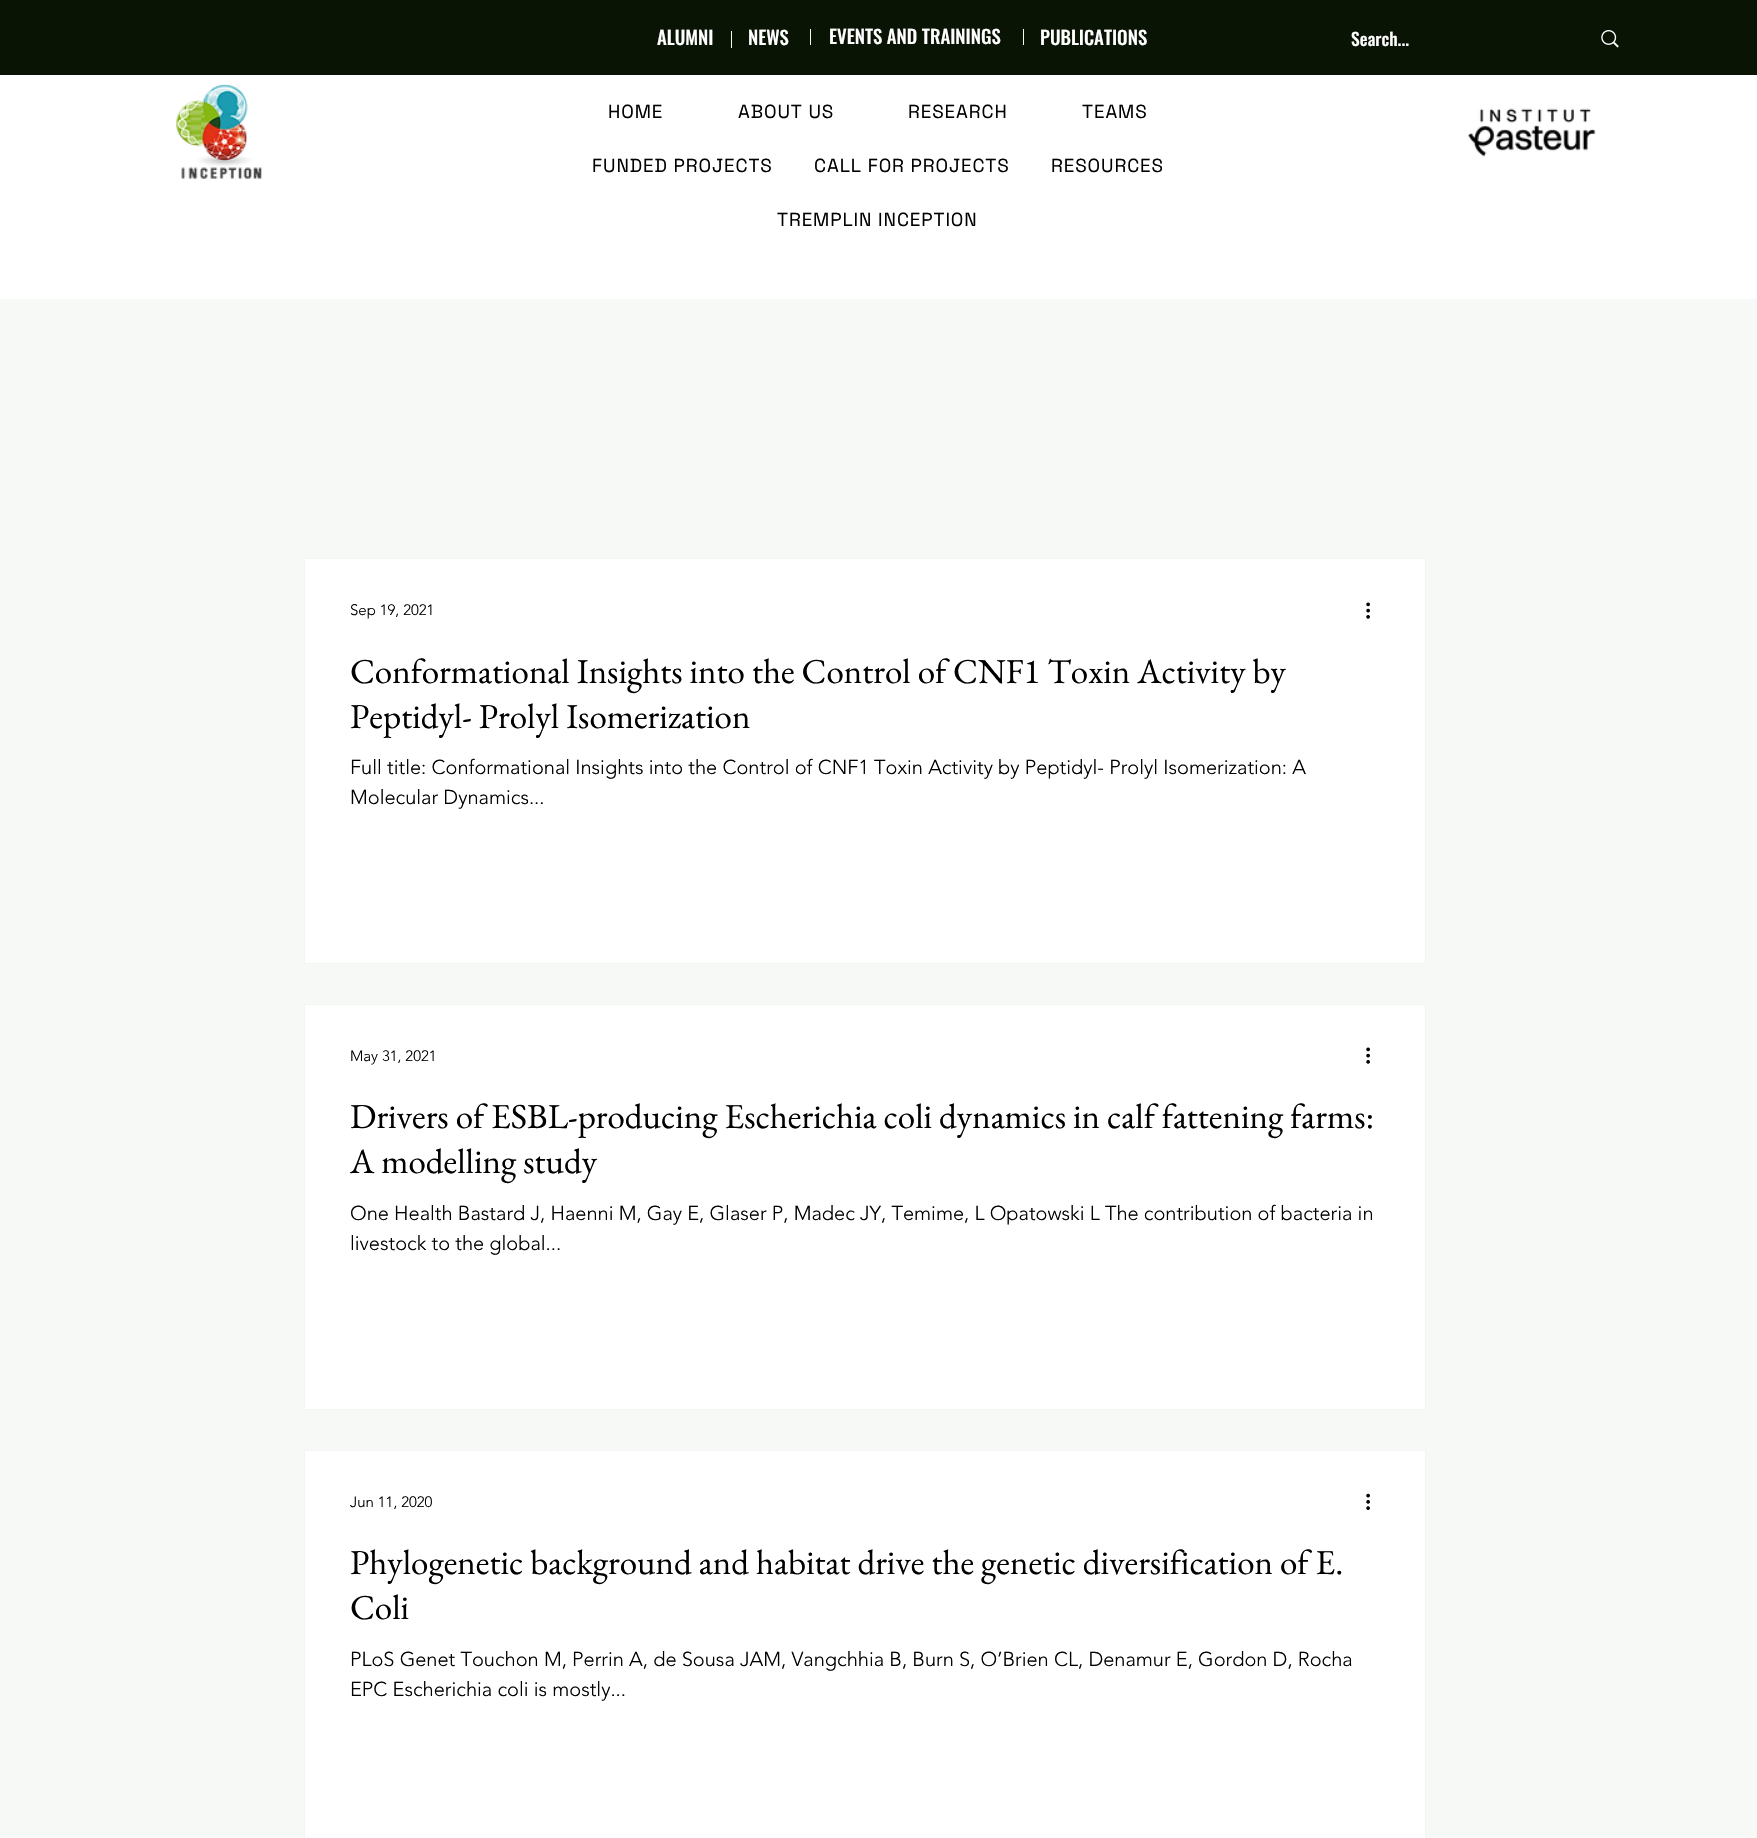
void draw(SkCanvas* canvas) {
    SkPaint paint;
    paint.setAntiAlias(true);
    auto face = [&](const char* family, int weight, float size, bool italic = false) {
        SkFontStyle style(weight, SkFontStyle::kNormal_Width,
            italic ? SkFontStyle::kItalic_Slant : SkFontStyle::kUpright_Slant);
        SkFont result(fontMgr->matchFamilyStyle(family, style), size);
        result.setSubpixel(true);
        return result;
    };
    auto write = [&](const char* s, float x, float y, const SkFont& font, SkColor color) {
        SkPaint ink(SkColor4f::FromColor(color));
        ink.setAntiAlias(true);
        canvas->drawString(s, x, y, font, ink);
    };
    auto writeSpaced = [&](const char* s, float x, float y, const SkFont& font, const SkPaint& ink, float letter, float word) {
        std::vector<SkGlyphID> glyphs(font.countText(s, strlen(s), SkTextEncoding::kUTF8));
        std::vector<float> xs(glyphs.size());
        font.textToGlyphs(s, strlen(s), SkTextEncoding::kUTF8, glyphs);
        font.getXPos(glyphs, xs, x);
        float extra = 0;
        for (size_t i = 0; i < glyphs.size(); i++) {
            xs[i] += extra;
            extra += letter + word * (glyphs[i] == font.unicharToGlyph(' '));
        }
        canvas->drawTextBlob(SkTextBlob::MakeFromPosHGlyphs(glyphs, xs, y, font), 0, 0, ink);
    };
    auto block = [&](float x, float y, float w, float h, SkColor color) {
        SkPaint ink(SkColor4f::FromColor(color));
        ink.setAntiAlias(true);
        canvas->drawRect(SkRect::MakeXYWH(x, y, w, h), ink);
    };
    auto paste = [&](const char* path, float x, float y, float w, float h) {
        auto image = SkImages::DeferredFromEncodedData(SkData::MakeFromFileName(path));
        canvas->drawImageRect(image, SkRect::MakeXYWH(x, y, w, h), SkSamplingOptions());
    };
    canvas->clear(SkColorSetRGB(246, 249, 245));
    block(0, 0, 1757, 75, SkColorSetRGB(9, 20, 5));
    auto kFont1 = face("Oswald", 500, 18.75f);
    write("ALUMNI", 657, 45, kFont1, SK_ColorWHITE);
    block(731, 31, 1, 17, SkColorSetRGB(246, 249, 245));
    write("NEWS", 748, 45, kFont1, SK_ColorWHITE);
    block(810, 29, 1, 16, SkColorSetRGB(246, 249, 245));
    write("EVENTS AND TRAININGS", 829, 44, kFont1, SK_ColorWHITE);
    block(1023, 29, 1, 16, SkColorSetRGB(246, 249, 245));
    write("PUBLICATIONS", 1040, 45, kFont1, SK_ColorWHITE);
    auto kFont2 = face("Oswald", 500, 17.5f);
    write("Search...", 1351, 46, kFont2, SK_ColorWHITE);
    paste("pic1.png", 1601, 30, 18, 18);
    block(0, 75, 1757, 224, SK_ColorWHITE);
    paste("pic2.png", 176, 84, 86, 95);
    auto kFont3 = face("Space Grotesk", 400, 18.75f);
    paint.setColor(SK_ColorBLACK);
    writeSpaced("HOME", 608, 118, kFont3, paint, 0.9f, 0);
    writeSpaced("ABOUT US", 738, 118, kFont3, paint, 0.9f, 0);
    writeSpaced("RESEARCH", 908, 118, kFont3, paint, 0.9f, 0);
    writeSpaced("TEAMS", 1082, 118, kFont3, paint, 0.9f, 0);
    writeSpaced("FUNDED PROJECTS", 592, 172, kFont3, paint, 0.9f, 0);
    writeSpaced("CALL FOR PROJECTS", 814, 172, kFont3, paint, 0.9f, 0);
    writeSpaced("RESOURCES", 1051, 172, kFont3, paint, 0.9f, 0);
    writeSpaced("TREMPLIN INCEPTION", 777, 226, kFont3, paint, 0.9f, 0);
    paste("pic3.png", 1467, 108, 129, 49);
    paint.setStyle(SkPaint::kStroke_Style);
    paint.setStrokeWidth(1);
    paint.setColor(SkColorSetRGB(243, 244, 243));
    canvas->drawRect(SkRect::MakeXYWH(304.5f, 558.5f, 1121, 405), paint);
    block(305, 559, 1120, 404, SK_ColorWHITE);
    auto kFont4 = face("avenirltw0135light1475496", 300, 15);
    write("Sep 19, 2021", 350, 615, kFont4, SK_ColorBLACK);
    paste("pic4.png", 1366, 602, 4, 17);
    auto kFont5 = face("EB Garamond", 400, 35);
    write("Conformational Insights into the Control of CNF1 Toxin Activity by", 350, 683, kFont5, SK_ColorBLACK);
    write("Peptidyl- Prolyl Isomerization", 350, 728, kFont5, SK_ColorBLACK);
    auto kFont6 = face("avenirltw0135light1475496", 300, 20);
    write("Full title: Conformational Insights into the Control of CNF1 Toxin Activity by Peptidyl- Prolyl Isomerization: A", 350, 774, kFont6, SK_ColorBLACK);
    write("Molecular Dynamics...", 350, 804, kFont6, SK_ColorBLACK);
    canvas->drawRect(SkRect::MakeXYWH(304.5f, 1004.5f, 1121, 405), paint);
    block(305, 1005, 1120, 404, SK_ColorWHITE);
    write("May 31, 2021", 350, 1061, kFont4, SK_ColorBLACK);
    paste("pic4.png", 1366, 1047, 4, 17);
    write("Drivers of ESBL-producing Escherichia coli dynamics in calf fattening farms:", 350, 1128, kFont5, SK_ColorBLACK);
    write("A modelling study", 350, 1173, kFont5, SK_ColorBLACK);
    write("One Health Bastard J, Haenni M, Gay E, Glaser P, Madec JY, Temime, L Opatowski L The contribution of bacteria in", 350, 1220, kFont6, SK_ColorBLACK);
    write("livestock to the global...", 350, 1250, kFont6, SK_ColorBLACK);
    canvas->drawRect(SkRect::MakeXYWH(304.5f, 1450.5f, 1121, 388), paint);
    block(305, 1451, 1120, 387, SK_ColorWHITE);
    write("Jun 11, 2020", 350, 1507, kFont4, SK_ColorBLACK);
    paste("pic5.png", 1366, 1493, 4, 17);
    write("Phylogenetic background and habitat drive the genetic diversification of E.", 350, 1574, kFont5, SK_ColorBLACK);
    write("Coli", 350, 1619, kFont5, SK_ColorBLACK);
    write("PLoS Genet Touchon M, Perrin A, de Sousa JAM, Vangchhia B, Burn S, O’Brien CL, Denamur E, Gordon D, Rocha", 350, 1666, kFont6, SK_ColorBLACK);
    write("EPC Escherichia coli is mostly...", 350, 1696, kFont6, SK_ColorBLACK);
}
